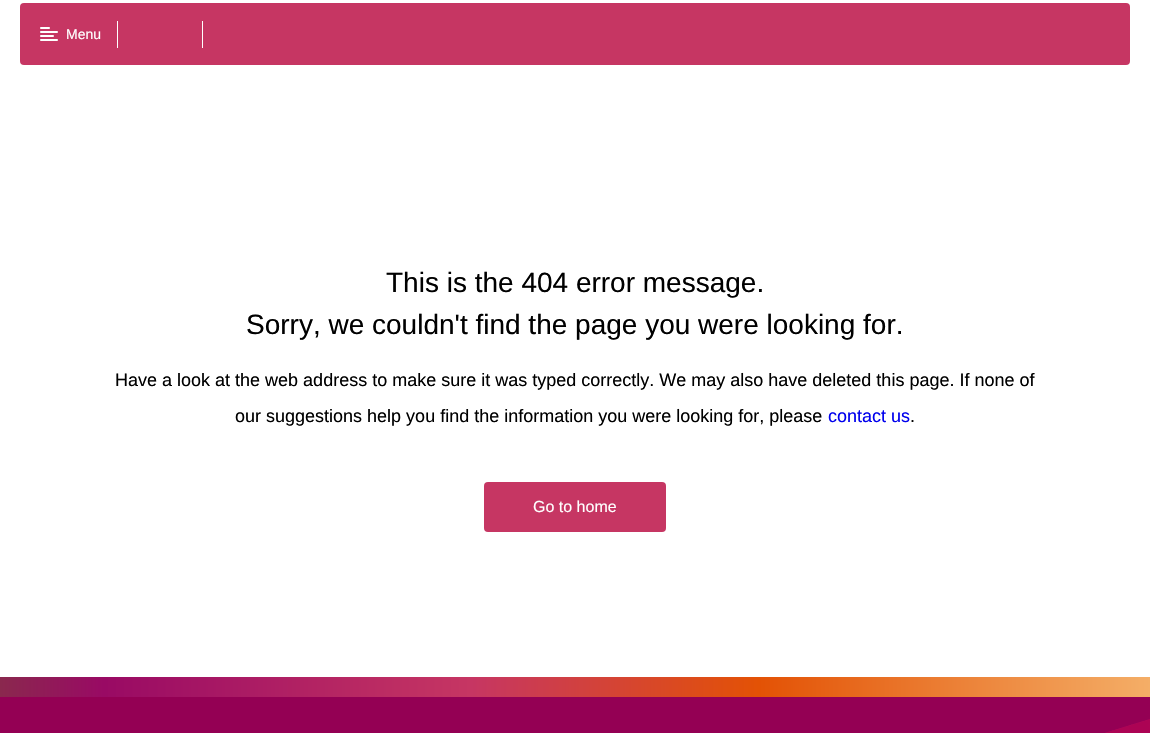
void draw(SkCanvas* canvas) {
    SkPaint paint;
    paint.setAntiAlias(true);
    auto face = [&](const char* family, int weight, float size, bool italic = false) {
        SkFontStyle style(weight, SkFontStyle::kNormal_Width,
            italic ? SkFontStyle::kItalic_Slant : SkFontStyle::kUpright_Slant);
        SkFont result(fontMgr->matchFamilyStyle(family, style), size);
        result.setSubpixel(true);
        return result;
    };
    auto write = [&](const char* s, float x, float y, const SkFont& font, SkColor color) {
        SkPaint ink(SkColor4f::FromColor(color));
        ink.setAntiAlias(true);
        canvas->drawString(s, x, y, font, ink);
    };
    auto block = [&](float x, float y, float w, float h, SkColor color) {
        SkPaint ink(SkColor4f::FromColor(color));
        ink.setAntiAlias(true);
        canvas->drawRect(SkRect::MakeXYWH(x, y, w, h), ink);
    };
    auto card = [&](float x, float y, float w, float h, float radius, SkColor color) {
        SkPaint ink(SkColor4f::FromColor(color));
        ink.setAntiAlias(true);
        canvas->drawRoundRect(SkRect::MakeXYWH(x, y, w, h), radius, radius, ink);
    };
    auto paste = [&](const char* path, float x, float y, float w, float h) {
        auto image = SkImages::DeferredFromEncodedData(SkData::MakeFromFileName(path));
        canvas->drawImageRect(image, SkRect::MakeXYWH(x, y, w, h), SkSamplingOptions());
    };
    canvas->clear(SK_ColorWHITE);
    card(20, 3, 1110, 62, 4, SkColorSetRGB(198, 54, 99));
    paste("pic1.png", 40, 27, 18, 14);
    auto kFont1 = face("Liberation Sans", 400, 14);
    write("Menu", 66, 39, kFont1, SK_ColorWHITE);
    block(117, 21, 1, 27, SK_ColorWHITE);
    block(202, 21, 1, 27, SK_ColorWHITE);
    auto kFont2 = face("Liberation Sans", 400, 28);
    write("This is the 404 error message.", 386, 292, kFont2, SK_ColorBLACK);
    write("Sorry, we couldn't find the page you were looking for.", 246, 334, kFont2, SK_ColorBLACK);
    auto kFont3 = face("Liberation Sans", 400, 18);
    write("Have a look at the web address to make sure it was typed correctly. We may also have deleted this page. If none of", 115, 386, kFont3, SK_ColorBLACK);
    write("our suggestions help you find the information you were looking for, please", 235, 422, kFont3, SK_ColorBLACK);
    write("contact us", 828, 422, kFont3, SkColorSetRGB(0, 0, 238));
    write(".", 910, 422, kFont3, SK_ColorBLACK);
    card(484, 482, 182, 50, 4, SkColorSetRGB(198, 54, 99));
    auto kFont4 = face("Liberation Sans", 400, 16);
    write("Go to home", 533, 512, kFont4, SK_ColorWHITE);
    block(0, 697, 1150, 36, SkColorSetRGB(148, 0, 84));
    paste("pic2.png", 1105, 719, 45, 14);
    {
        const SkColor colors[] = {SkColorSetRGB(138, 40, 78), SkColorSetRGB(153, 10, 100), SkColorSetRGB(198, 54, 99), SkColorSetRGB(227, 82, 5), SkColorSetRGB(244, 174, 103)};
        const float stops[] = {0, 0.09f, 0.41f, 0.66f, 1};
        const SkPoint ends[] = {{0, 687}, {1150, 687}};
        paint.setShader(SkGradientShader::MakeLinear(ends, colors, stops, 5, SkTileMode::kClamp));
        paint.setAlpha(255);
    }
    canvas->drawRect(SkRect::MakeXYWH(0, 677, 1150, 20), paint);
}
